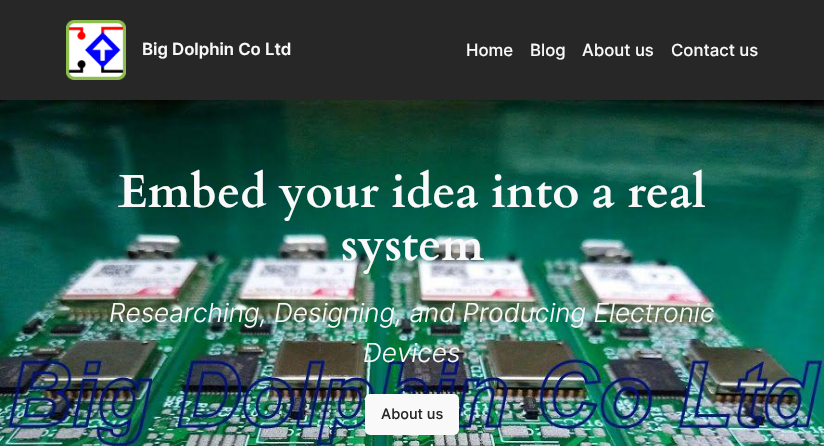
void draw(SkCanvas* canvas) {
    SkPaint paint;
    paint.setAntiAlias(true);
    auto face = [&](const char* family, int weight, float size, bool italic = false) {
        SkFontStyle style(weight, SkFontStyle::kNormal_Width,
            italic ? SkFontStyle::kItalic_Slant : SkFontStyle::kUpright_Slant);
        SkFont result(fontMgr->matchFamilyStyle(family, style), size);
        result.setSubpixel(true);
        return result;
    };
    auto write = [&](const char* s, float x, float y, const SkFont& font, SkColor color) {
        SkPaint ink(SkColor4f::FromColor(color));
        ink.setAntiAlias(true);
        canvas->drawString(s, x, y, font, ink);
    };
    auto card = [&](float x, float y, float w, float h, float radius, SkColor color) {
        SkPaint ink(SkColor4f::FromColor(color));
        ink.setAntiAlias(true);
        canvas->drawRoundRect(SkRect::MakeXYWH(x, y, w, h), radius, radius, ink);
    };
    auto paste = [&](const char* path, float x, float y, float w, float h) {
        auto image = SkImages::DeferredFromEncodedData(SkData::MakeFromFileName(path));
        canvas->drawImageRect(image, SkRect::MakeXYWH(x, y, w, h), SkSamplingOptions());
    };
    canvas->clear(SkColorSetRGB(39, 39, 39));
    paste("pic1.png", 66, 20, 60, 60);
    auto kFont1 = face("Inter", 600, 16.75f);
    write("Big Dolphin Co Ltd", 142, 55, kFont1, SkColorSetRGB(249, 249, 249));
    auto kFont2 = face("Inter", 500, 16.75f);
    write("Home", 466, 56, kFont2, SkColorSetRGB(249, 249, 249));
    write("Blog", 530, 56, kFont2, SkColorSetRGB(249, 249, 249));
    write("About us", 582, 56, kFont2, SkColorSetRGB(249, 249, 249));
    write("Contact us", 671, 56, kFont2, SkColorSetRGB(249, 249, 249));
    paste("pic2.png", 0, 100, 824, 346);
    auto kFont3 = face("Cardo", 700, 46.5f);
    write("Embed your idea into a real", 118, 207, kFont3, SkColorSetRGB(249, 249, 249));
    write("system", 341, 260, kFont3, SkColorSetRGB(249, 249, 249));
    auto kFont4 = face("Inter", 300, 26.1f, true);
    write("Researching, Designing, and Producing Electronic", 109, 322, kFont4, SkColorSetRGB(249, 249, 249));
    write("Devices", 363, 362, kFont4, SkColorSetRGB(249, 249, 249));
    card(365, 394, 94, 41, 5, SkColorSetRGB(249, 249, 249));
    auto kFont5 = face("Inter", 500, 14.5f);
    write("About us", 381, 419, kFont5, SkColorSetRGB(39, 39, 39));
}
